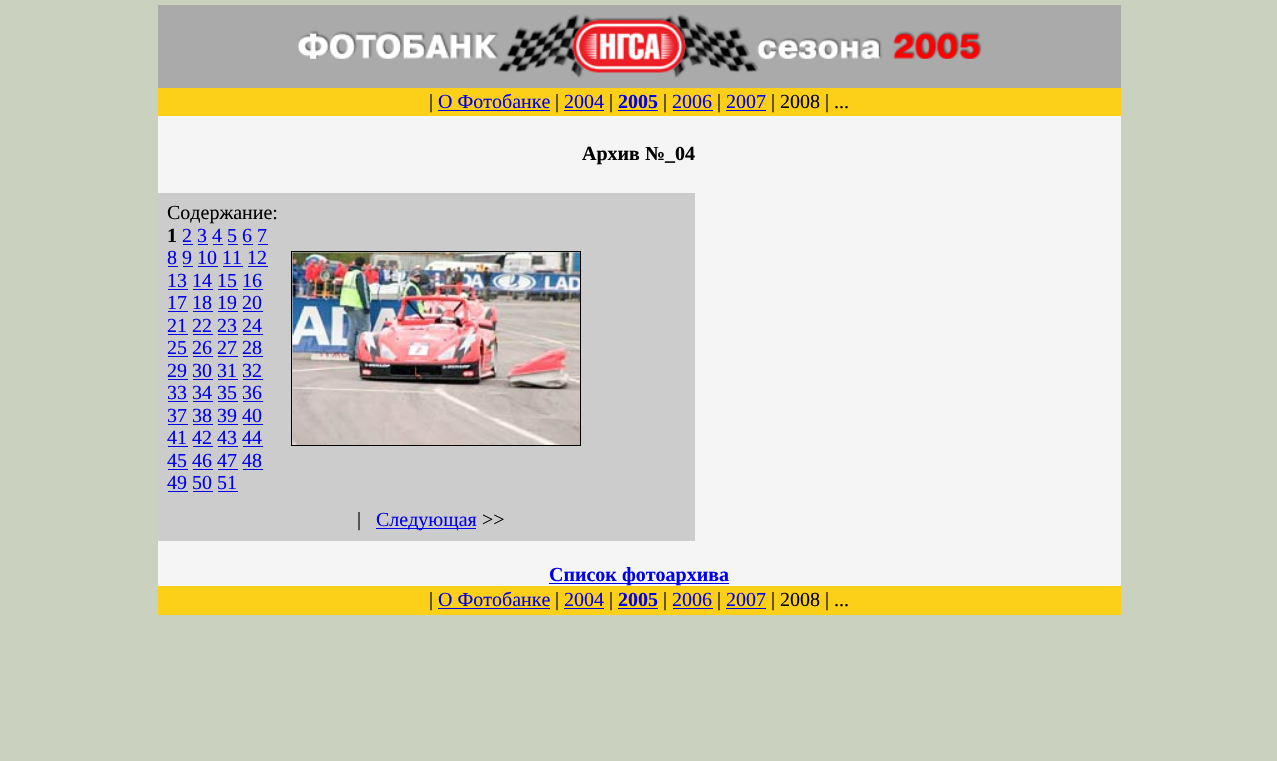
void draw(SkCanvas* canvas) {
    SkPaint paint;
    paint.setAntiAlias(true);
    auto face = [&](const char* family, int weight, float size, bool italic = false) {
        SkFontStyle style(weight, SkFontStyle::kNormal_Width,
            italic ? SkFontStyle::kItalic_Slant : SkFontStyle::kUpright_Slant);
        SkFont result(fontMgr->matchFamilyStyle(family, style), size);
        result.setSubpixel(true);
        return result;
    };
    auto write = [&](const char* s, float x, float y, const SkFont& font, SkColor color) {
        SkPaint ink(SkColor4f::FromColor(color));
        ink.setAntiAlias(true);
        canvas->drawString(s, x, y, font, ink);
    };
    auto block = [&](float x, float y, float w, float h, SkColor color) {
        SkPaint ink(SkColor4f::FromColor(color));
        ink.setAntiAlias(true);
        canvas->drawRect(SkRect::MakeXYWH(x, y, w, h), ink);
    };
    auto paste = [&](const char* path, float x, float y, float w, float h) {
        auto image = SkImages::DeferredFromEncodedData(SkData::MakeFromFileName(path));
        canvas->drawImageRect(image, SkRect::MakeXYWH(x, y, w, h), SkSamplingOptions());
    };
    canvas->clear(SkColorSetRGB(202, 209, 190));
    block(158, 116, 963, 470, SkColorSetRGB(245, 245, 245));
    block(158, 5, 963, 83, SkColorSetRGB(170, 170, 170));
    paste("pic1.png", 297, 14, 685, 64);
    block(158, 88, 963, 28, SkColorSetRGB(252, 207, 25));
    auto kFont1 = face("Liberation Serif", 400, 20);
    write("|", 429, 108, kFont1, SK_ColorBLACK);
    write("О Фотобанке", 438, 108, kFont1, SkColorSetRGB(0, 0, 238));
    block(438, 110, 112, 1, SkColorSetRGB(0, 0, 238));
    write("|", 555, 108, kFont1, SK_ColorBLACK);
    write("2004", 564, 108, kFont1, SkColorSetRGB(0, 0, 238));
    block(564, 110, 40, 1, SkColorSetRGB(0, 0, 238));
    write("|", 609, 108, kFont1, SK_ColorBLACK);
    auto kFont2 = face("Liberation Serif", 700, 20);
    write("2005", 618, 108, kFont2, SkColorSetRGB(0, 0, 238));
    block(618, 110, 40, 1, SkColorSetRGB(0, 0, 238));
    write("|", 663, 108, kFont1, SK_ColorBLACK);
    write("2006", 672, 108, kFont1, SkColorSetRGB(0, 0, 238));
    block(673, 110, 40, 1, SkColorSetRGB(0, 0, 238));
    write("|", 717, 108, kFont1, SK_ColorBLACK);
    write("2007", 726, 108, kFont1, SkColorSetRGB(0, 0, 238));
    block(726, 110, 40, 1, SkColorSetRGB(0, 0, 238));
    write("| 2008 | ...", 771, 108, kFont1, SK_ColorBLACK);
    write("Архив №_04", 582, 160, kFont2, SK_ColorBLACK);
    block(158, 193, 537, 348, SkColorSetRGB(204, 204, 204));
    write("Содержание:", 167, 219, kFont1, SK_ColorBLACK);
    write("1", 167, 242, kFont2, SK_ColorBLACK);
    write("2 3 4 5 6 7", 182, 242, kFont1, SkColorSetRGB(0, 0, 238));
    block(183, 244, 10, 1, SkColorSetRGB(0, 0, 238));
    block(198, 244, 10, 1, SkColorSetRGB(0, 0, 238));
    block(213, 244, 10, 1, SkColorSetRGB(0, 0, 238));
    block(228, 244, 10, 1, SkColorSetRGB(0, 0, 238));
    block(243, 244, 10, 1, SkColorSetRGB(0, 0, 238));
    block(258, 244, 10, 1, SkColorSetRGB(0, 0, 238));
    write("8 9 10 11 12", 167, 264, kFont1, SkColorSetRGB(0, 0, 238));
    block(168, 266, 10, 1, SkColorSetRGB(0, 0, 238));
    block(183, 266, 10, 1, SkColorSetRGB(0, 0, 238));
    block(198, 266, 20, 1, SkColorSetRGB(0, 0, 238));
    block(223, 266, 20, 1, SkColorSetRGB(0, 0, 238));
    block(248, 266, 20, 1, SkColorSetRGB(0, 0, 238));
    write("13 14 15 16", 167, 287, kFont1, SkColorSetRGB(0, 0, 238));
    block(168, 289, 20, 1, SkColorSetRGB(0, 0, 238));
    block(193, 289, 20, 1, SkColorSetRGB(0, 0, 238));
    block(218, 289, 20, 1, SkColorSetRGB(0, 0, 238));
    block(243, 289, 20, 1, SkColorSetRGB(0, 0, 238));
    write("17 18 19 20", 167, 309, kFont1, SkColorSetRGB(0, 0, 238));
    block(168, 311, 20, 1, SkColorSetRGB(0, 0, 238));
    block(193, 311, 20, 1, SkColorSetRGB(0, 0, 238));
    block(218, 311, 20, 1, SkColorSetRGB(0, 0, 238));
    block(243, 311, 20, 1, SkColorSetRGB(0, 0, 238));
    write("21 22 23 24", 167, 332, kFont1, SkColorSetRGB(0, 0, 238));
    block(168, 334, 20, 1, SkColorSetRGB(0, 0, 238));
    block(193, 334, 20, 1, SkColorSetRGB(0, 0, 238));
    block(218, 334, 20, 1, SkColorSetRGB(0, 0, 238));
    block(243, 334, 20, 1, SkColorSetRGB(0, 0, 238));
    write("25 26 27 28", 167, 354, kFont1, SkColorSetRGB(0, 0, 238));
    block(168, 356, 20, 1, SkColorSetRGB(0, 0, 238));
    block(193, 356, 20, 1, SkColorSetRGB(0, 0, 238));
    block(218, 356, 20, 1, SkColorSetRGB(0, 0, 238));
    block(243, 356, 20, 1, SkColorSetRGB(0, 0, 238));
    write("29 30 31 32", 167, 377, kFont1, SkColorSetRGB(0, 0, 238));
    block(168, 379, 20, 1, SkColorSetRGB(0, 0, 238));
    block(193, 379, 20, 1, SkColorSetRGB(0, 0, 238));
    block(218, 379, 20, 1, SkColorSetRGB(0, 0, 238));
    block(243, 379, 20, 1, SkColorSetRGB(0, 0, 238));
    write("33 34 35 36", 167, 399, kFont1, SkColorSetRGB(0, 0, 238));
    block(168, 401, 20, 1, SkColorSetRGB(0, 0, 238));
    block(193, 401, 20, 1, SkColorSetRGB(0, 0, 238));
    block(218, 401, 20, 1, SkColorSetRGB(0, 0, 238));
    block(243, 401, 20, 1, SkColorSetRGB(0, 0, 238));
    write("37 38 39 40", 167, 422, kFont1, SkColorSetRGB(0, 0, 238));
    block(168, 424, 20, 1, SkColorSetRGB(0, 0, 238));
    block(193, 424, 20, 1, SkColorSetRGB(0, 0, 238));
    block(218, 424, 20, 1, SkColorSetRGB(0, 0, 238));
    block(243, 424, 20, 1, SkColorSetRGB(0, 0, 238));
    write("41 42 43 44", 167, 444, kFont1, SkColorSetRGB(0, 0, 238));
    block(168, 446, 20, 1, SkColorSetRGB(0, 0, 238));
    block(193, 446, 20, 1, SkColorSetRGB(0, 0, 238));
    block(218, 446, 20, 1, SkColorSetRGB(0, 0, 238));
    block(243, 446, 20, 1, SkColorSetRGB(0, 0, 238));
    write("45 46 47 48", 167, 467, kFont1, SkColorSetRGB(0, 0, 238));
    block(168, 469, 20, 1, SkColorSetRGB(0, 0, 238));
    block(193, 469, 20, 1, SkColorSetRGB(0, 0, 238));
    block(218, 469, 20, 1, SkColorSetRGB(0, 0, 238));
    block(243, 469, 20, 1, SkColorSetRGB(0, 0, 238));
    write("49 50 51", 167, 489, kFont1, SkColorSetRGB(0, 0, 238));
    block(168, 491, 20, 1, SkColorSetRGB(0, 0, 238));
    block(193, 491, 20, 1, SkColorSetRGB(0, 0, 238));
    block(218, 491, 20, 1, SkColorSetRGB(0, 0, 238));
    paint.setStyle(SkPaint::kStroke_Style);
    paint.setStrokeWidth(1);
    paint.setColor(SK_ColorBLACK);
    canvas->drawRect(SkRect::MakeXYWH(291.5f, 251.5f, 289, 194), paint);
    paste("pic2.png", 292, 252, 288, 193);
    write("|", 357, 526, kFont1, SK_ColorBLACK);
    block(376, 528, 100, 1, SkColorSetRGB(0, 0, 238));
    write("Следующая", 376, 526, kFont1, SkColorSetRGB(0, 0, 238));
    write(">>", 482, 526, kFont1, SK_ColorBLACK);
    block(549, 583, 180, 1, SkColorSetRGB(0, 0, 238));
    write("Список фотоархива", 549, 581, kFont2, SkColorSetRGB(0, 0, 238));
    block(158, 586, 963, 29, SkColorSetRGB(252, 207, 25));
    write("|", 429, 606, kFont1, SK_ColorBLACK);
    write("О Фотобанке", 438, 606, kFont1, SkColorSetRGB(0, 0, 238));
    block(438, 608, 112, 1, SkColorSetRGB(0, 0, 238));
    write("|", 555, 606, kFont1, SK_ColorBLACK);
    write("2004", 564, 606, kFont1, SkColorSetRGB(0, 0, 238));
    block(564, 608, 40, 1, SkColorSetRGB(0, 0, 238));
    write("|", 609, 606, kFont1, SK_ColorBLACK);
    write("2005", 618, 606, kFont2, SkColorSetRGB(0, 0, 238));
    block(618, 608, 40, 1, SkColorSetRGB(0, 0, 238));
    write("|", 663, 606, kFont1, SK_ColorBLACK);
    write("2006", 672, 606, kFont1, SkColorSetRGB(0, 0, 238));
    block(673, 608, 40, 1, SkColorSetRGB(0, 0, 238));
    write("|", 717, 606, kFont1, SK_ColorBLACK);
    write("2007", 726, 606, kFont1, SkColorSetRGB(0, 0, 238));
    block(726, 608, 40, 1, SkColorSetRGB(0, 0, 238));
    write("| 2008 | ...", 771, 606, kFont1, SK_ColorBLACK);
}
